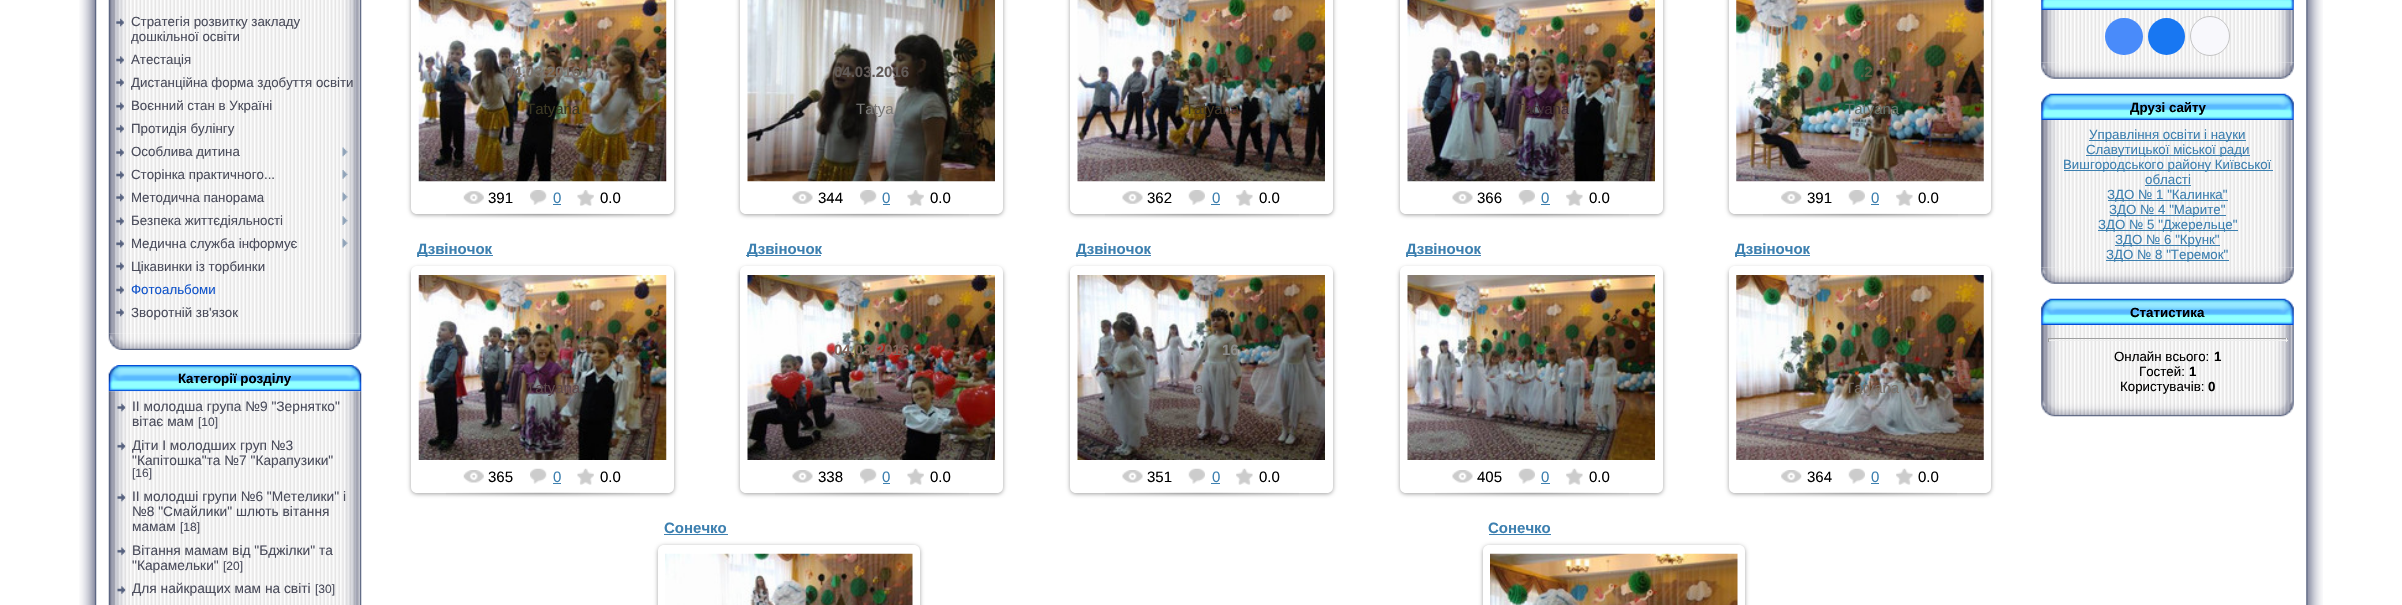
void draw(SkCanvas* canvas) {
    SkPaint paint;
    paint.setAntiAlias(true);
    auto face = [&](const char* family, int weight, float size, bool italic = false) {
        SkFontStyle style(weight, SkFontStyle::kNormal_Width,
            italic ? SkFontStyle::kItalic_Slant : SkFontStyle::kUpright_Slant);
        SkFont result(fontMgr->matchFamilyStyle(family, style), size);
        result.setSubpixel(true);
        return result;
    };
    auto write = [&](const char* s, float x, float y, const SkFont& font, SkColor color) {
        SkPaint ink(SkColor4f::FromColor(color));
        ink.setAntiAlias(true);
        canvas->drawString(s, x, y, font, ink);
    };
    auto block = [&](float x, float y, float w, float h, SkColor color) {
        SkPaint ink(SkColor4f::FromColor(color));
        ink.setAntiAlias(true);
        canvas->drawRect(SkRect::MakeXYWH(x, y, w, h), ink);
    };
    auto card = [&](float x, float y, float w, float h, float radius, SkColor color) {
        SkPaint ink(SkColor4f::FromColor(color));
        ink.setAntiAlias(true);
        canvas->drawRoundRect(SkRect::MakeXYWH(x, y, w, h), radius, radius, ink);
    };
    auto paste = [&](const char* path, float x, float y, float w, float h) {
        auto image = SkImages::DeferredFromEncodedData(SkData::MakeFromFileName(path));
        canvas->drawImageRect(image, SkRect::MakeXYWH(x, y, w, h), SkSamplingOptions());
    };
    canvas->clear(SK_ColorWHITE);
    paste("pic1.png", 79, 0, 18, 605);
    paste("pic2.png", 108, 0, 254, 334);
    paste("pic3.png", 116, 18, 8, 9);
    auto kFont1 = face("Liberation Sans", 400, 13.3f);
    write("Стратегія розвитку закладу", 131, 26, kFont1, SkColorSetRGB(75, 77, 92));
    write("дошкільної освіти", 131, 41, kFont1, SkColorSetRGB(75, 77, 92));
    paste("pic4.png", 116, 56, 8, 8);
    write("Атестація", 131, 64, kFont1, SkColorSetRGB(75, 77, 92));
    paste("pic5.png", 116, 78, 8, 9);
    write("Дистанційна форма здобуття освіти", 131, 87, kFont1, SkColorSetRGB(75, 77, 92));
    paste("pic6.png", 116, 102, 8, 9);
    write("Воєнний стан в Україні", 131, 110, kFont1, SkColorSetRGB(75, 77, 92));
    paste("pic7.png", 116, 124, 8, 9);
    write("Протидія булінгу", 131, 133, kFont1, SkColorSetRGB(75, 77, 92));
    paste("pic5.png", 116, 148, 8, 9);
    write("Особлива дитина", 131, 156, kFont1, SkColorSetRGB(75, 77, 92));
    paste("pic8.png", 342, 147, 6, 10);
    paste("pic4.png", 116, 171, 8, 8);
    write("Сторінка практичного...", 131, 179, kFont1, SkColorSetRGB(75, 77, 92));
    paste("pic9.png", 342, 170, 6, 9);
    paste("pic5.png", 116, 193, 8, 9);
    write("Методична панорама", 131, 202, kFont1, SkColorSetRGB(75, 77, 92));
    paste("pic8.png", 342, 192, 6, 10);
    paste("pic10.png", 116, 217, 8, 9);
    write("Безпека життєдіяльності", 131, 225, kFont1, SkColorSetRGB(75, 77, 92));
    paste("pic11.png", 342, 216, 6, 9);
    paste("pic12.png", 116, 239, 8, 9);
    write("Медична служба інформує", 131, 248, kFont1, SkColorSetRGB(75, 77, 92));
    paste("pic13.png", 342, 238, 6, 10);
    paste("pic10.png", 116, 262, 8, 9);
    write("Цікавинки із торбинки", 131, 271, kFont1, SkColorSetRGB(75, 77, 92));
    paste("pic4.png", 116, 286, 8, 8);
    write("Фотоальбоми", 131, 294, kFont1, SkColorSetRGB(17, 84, 202));
    paste("pic14.png", 116, 308, 8, 9);
    write("Зворотній зв'язок", 131, 317, kFont1, SkColorSetRGB(75, 77, 92));
    paste("pic15.png", 108, 333, 254, 17);
    paste("pic16.png", 108, 365, 254, 27);
    auto kFont2 = face("Liberation Sans", 700, 13.3f);
    write("Категорії розділу", 178, 383, kFont2, SK_ColorBLACK);
    paste("pic17.png", 108, 391, 254, 214);
    paste("pic18.png", 117, 403, 9, 9);
    auto kFont3 = face("Liberation Sans", 400, 13.75f);
    write("ІІ молодша група №9 \"Зернятко\"", 132, 411, kFont3, SkColorSetRGB(75, 77, 92));
    write("вітає мам", 132, 426, kFont3, SkColorSetRGB(75, 77, 92));
    auto kFont4 = face("Liberation Sans", 400, 12);
    write("[10]", 198, 426, kFont4, SkColorSetRGB(75, 77, 92));
    paste("pic19.png", 117, 442, 9, 9);
    write("Діти І молодших груп №3", 132, 450, kFont3, SkColorSetRGB(75, 77, 92));
    write("\"Капітошка\"та №7 \"Карапузики\"", 132, 465, kFont3, SkColorSetRGB(75, 77, 92));
    write("[16]", 132, 477, kFont4, SkColorSetRGB(75, 77, 92));
    paste("pic20.png", 117, 493, 9, 9);
    write("ІІ молодші групи №6 \"Метелики\" і", 132, 501, kFont3, SkColorSetRGB(75, 77, 92));
    write("№8 \"Смайлики\" шлють вітання", 132, 516, kFont3, SkColorSetRGB(75, 77, 92));
    write("мамам", 132, 531, kFont3, SkColorSetRGB(75, 77, 92));
    write("[18]", 180, 531, kFont4, SkColorSetRGB(75, 77, 92));
    paste("pic21.png", 117, 547, 9, 9);
    write("Вітання мамам від \"Бджілки\" та", 132, 555, kFont3, SkColorSetRGB(75, 77, 92));
    write("\"Карамельки\"", 132, 570, kFont3, SkColorSetRGB(75, 77, 92));
    write("[20]", 223, 570, kFont4, SkColorSetRGB(75, 77, 92));
    paste("pic22.png", 117, 586, 9, 8);
    write("Для найкращих мам на світі", 132, 593, kFont3, SkColorSetRGB(75, 77, 92));
    write("[30]", 315, 593, kFont4, SkColorSetRGB(75, 77, 92));
    canvas->save();
    canvas->clipPath(SkPathBuilder(SkPathFillType::kEvenOdd).moveTo(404, 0).lineTo(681, 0).lineTo(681, 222).lineTo(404, 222).close().moveTo(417, -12).lineTo(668, -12).cubicTo(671.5f, -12, 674, -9.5f, 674, -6).lineTo(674, 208).cubicTo(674, 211.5f, 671.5f, 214, 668, 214).lineTo(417, 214).cubicTo(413.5f, 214, 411, 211.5f, 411, 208).lineTo(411, -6).cubicTo(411, -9.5f, 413.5f, -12, 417, -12).close().detach(), true);
    paint.setColor(SkColorSetARGB(94, 0, 0, 0));
    paint.setMaskFilter(SkMaskFilter::MakeBlur(kNormal_SkBlurStyle, 2));
    canvas->drawRoundRect(SkRect::MakeXYWH(411, -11, 263, 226), 6, 6, paint);
    paint.setMaskFilter(nullptr);
    canvas->restore();
    paste("pic23.png", 418, 0, 249, 182);
    auto kFont5 = face("Liberation Sans", 700, 15);
    write("04.03.2016", 505, 77, kFont5, SkColorSetRGB(122, 113, 105));
    auto kFont6 = face("Liberation Sans", 400, 15);
    write("Тatyana", 526, 114, kFont6, SkColorSetRGB(59, 56, 35));
    paste("pic24.png", 463, 191, 21, 13);
    write("391", 488, 203, kFont6, SK_ColorBLACK);
    paste("pic25.png", 530, 190, 17, 15);
    write("0", 553, 203, kFont6, SkColorSetRGB(61, 128, 176));
    block(553, 204, 8, 1, SkColorSetRGB(61, 128, 176));
    paste("pic26.png", 577, 190, 17, 16);
    write("0.0", 600, 203, kFont6, SK_ColorBLACK);
    paste("pic27.png", 446, 213, 194, 5);
    canvas->save();
    canvas->clipPath(SkPathBuilder(SkPathFillType::kEvenOdd).moveTo(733, 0).lineTo(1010, 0).lineTo(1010, 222).lineTo(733, 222).close().moveTo(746, -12).lineTo(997, -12).cubicTo(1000.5f, -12, 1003, -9.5f, 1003, -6).lineTo(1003, 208).cubicTo(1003, 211.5f, 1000.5f, 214, 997, 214).lineTo(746, 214).cubicTo(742.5f, 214, 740, 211.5f, 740, 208).lineTo(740, -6).cubicTo(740, -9.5f, 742.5f, -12, 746, -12).close().detach(), true);
    paint.setMaskFilter(SkMaskFilter::MakeBlur(kNormal_SkBlurStyle, 2));
    canvas->drawRoundRect(SkRect::MakeXYWH(740, -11, 263, 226), 6, 6, paint);
    paint.setMaskFilter(nullptr);
    canvas->restore();
    paste("pic28.png", 747, 0, 248, 182);
    write("04.03.2016", 834, 77, kFont5, SkColorSetRGB(97, 90, 87));
    write("Тatya", 856, 114, kFont6, SkColorSetRGB(123, 123, 121));
    paste("pic29.png", 792, 191, 21, 13);
    write("344", 818, 203, kFont6, SK_ColorBLACK);
    paste("pic30.png", 860, 190, 17, 15);
    write("0", 882, 203, kFont6, SkColorSetRGB(61, 128, 176));
    block(883, 204, 7, 1, SkColorSetRGB(61, 128, 176));
    paste("pic31.png", 907, 190, 17, 16);
    write("0.0", 930, 203, kFont6, SK_ColorBLACK);
    paste("pic32.png", 775, 213, 194, 5);
    canvas->save();
    canvas->clipPath(SkPathBuilder(SkPathFillType::kEvenOdd).moveTo(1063, 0).lineTo(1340, 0).lineTo(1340, 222).lineTo(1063, 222).close().moveTo(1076, -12).lineTo(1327, -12).cubicTo(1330.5f, -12, 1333, -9.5f, 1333, -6).lineTo(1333, 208).cubicTo(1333, 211.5f, 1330.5f, 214, 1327, 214).lineTo(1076, 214).cubicTo(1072.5f, 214, 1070, 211.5f, 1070, 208).lineTo(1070, -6).cubicTo(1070, -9.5f, 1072.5f, -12, 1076, -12).close().detach(), true);
    paint.setMaskFilter(SkMaskFilter::MakeBlur(kNormal_SkBlurStyle, 2));
    canvas->drawRoundRect(SkRect::MakeXYWH(1070, -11, 263, 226), 6, 6, paint);
    paint.setMaskFilter(nullptr);
    canvas->restore();
    paste("pic33.png", 1077, 0, 248, 182);
    write(".", 1180, 77, kFont5, SkColorSetRGB(89, 81, 63));
    write("1", 1222, 77, kFont5, SkColorSetRGB(89, 81, 63));
    write("Тatyana", 1185, 114, kFont6, SkColorSetRGB(68, 55, 38));
    paste("pic34.png", 1122, 191, 21, 13);
    write("362", 1147, 203, kFont6, SK_ColorBLACK);
    paste("pic35.png", 1188, 190, 17, 15);
    write("0", 1212, 203, kFont6, SkColorSetRGB(61, 128, 176));
    block(1211, 204, 9, 1, SkColorSetRGB(61, 128, 176));
    paste("pic36.png", 1236, 190, 17, 16);
    write("0.0", 1259, 203, kFont6, SK_ColorBLACK);
    paste("pic37.png", 1105, 213, 194, 5);
    canvas->save();
    canvas->clipPath(SkPathBuilder(SkPathFillType::kEvenOdd).moveTo(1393, 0).lineTo(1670, 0).lineTo(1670, 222).lineTo(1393, 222).close().moveTo(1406, -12).lineTo(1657, -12).cubicTo(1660.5f, -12, 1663, -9.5f, 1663, -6).lineTo(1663, 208).cubicTo(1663, 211.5f, 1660.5f, 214, 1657, 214).lineTo(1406, 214).cubicTo(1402.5f, 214, 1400, 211.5f, 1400, 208).lineTo(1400, -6).cubicTo(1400, -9.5f, 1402.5f, -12, 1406, -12).close().detach(), true);
    paint.setMaskFilter(SkMaskFilter::MakeBlur(kNormal_SkBlurStyle, 2));
    canvas->drawRoundRect(SkRect::MakeXYWH(1400, -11, 263, 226), 6, 6, paint);
    paint.setMaskFilter(nullptr);
    canvas->restore();
    paste("pic38.png", 1407, 0, 248, 182);
    write("Тatyana", 1515, 114, kFont6, SkColorSetRGB(68, 48, 55));
    paste("pic29.png", 1452, 191, 21, 13);
    write("366", 1477, 203, kFont6, SK_ColorBLACK);
    paste("pic35.png", 1518, 190, 17, 15);
    write("0", 1541, 203, kFont6, SkColorSetRGB(61, 128, 176));
    block(1541, 204, 9, 1, SkColorSetRGB(61, 128, 176));
    paste("pic36.png", 1566, 190, 17, 16);
    write("0.0", 1589, 203, kFont6, SK_ColorBLACK);
    paste("pic37.png", 1435, 213, 194, 5);
    canvas->save();
    canvas->clipPath(SkPathBuilder(SkPathFillType::kEvenOdd).moveTo(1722, 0).lineTo(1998, 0).lineTo(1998, 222).lineTo(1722, 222).close().moveTo(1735, -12).lineTo(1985, -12).cubicTo(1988.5f, -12, 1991, -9.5f, 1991, -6).lineTo(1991, 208).cubicTo(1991, 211.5f, 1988.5f, 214, 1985, 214).lineTo(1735, 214).cubicTo(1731.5f, 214, 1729, 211.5f, 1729, 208).lineTo(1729, -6).cubicTo(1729, -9.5f, 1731.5f, -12, 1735, -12).close().detach(), true);
    paint.setMaskFilter(SkMaskFilter::MakeBlur(kNormal_SkBlurStyle, 2));
    canvas->drawRoundRect(SkRect::MakeXYWH(1729, -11, 262, 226), 6, 6, paint);
    paint.setMaskFilter(nullptr);
    canvas->restore();
    paste("pic39.png", 1736, 0, 248, 182);
    write(".2", 1860, 77, kFont5, SkColorSetRGB(91, 94, 68));
    write("Тatyana", 1845, 114, kFont6, SkColorSetRGB(102, 114, 106));
    paste("pic40.png", 1781, 191, 21, 13);
    write("391", 1807, 203, kFont6, SK_ColorBLACK);
    paste("pic41.png", 1848, 190, 17, 15);
    write("0", 1871, 203, kFont6, SkColorSetRGB(61, 128, 176));
    block(1871, 204, 8, 1, SkColorSetRGB(61, 128, 176));
    paste("pic36.png", 1896, 190, 17, 16);
    write("0.0", 1918, 203, kFont6, SK_ColorBLACK);
    paste("pic42.png", 1763, 213, 195, 5);
    block(418, 255, 75, 1, SkColorSetRGB(61, 128, 176));
    write("Дзвіночок", 417, 254, kFont5, SkColorSetRGB(61, 128, 176));
    canvas->save();
    canvas->clipPath(SkPathBuilder(SkPathFillType::kEvenOdd).moveTo(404, 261).lineTo(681, 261).lineTo(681, 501).lineTo(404, 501).close().moveTo(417, 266).lineTo(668, 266).cubicTo(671.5f, 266, 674, 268.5f, 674, 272).lineTo(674, 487).cubicTo(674, 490.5f, 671.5f, 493, 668, 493).lineTo(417, 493).cubicTo(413.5f, 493, 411, 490.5f, 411, 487).lineTo(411, 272).cubicTo(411, 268.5f, 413.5f, 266, 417, 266).close().detach(), true);
    paint.setMaskFilter(SkMaskFilter::MakeBlur(kNormal_SkBlurStyle, 2));
    canvas->drawRoundRect(SkRect::MakeXYWH(411, 268, 263, 226), 6, 6, paint);
    paint.setMaskFilter(nullptr);
    canvas->restore();
    paste("pic43.png", 418, 275, 249, 185);
    write(".", 542, 355, kFont5, SkColorSetRGB(113, 88, 79));
    write("Тatyana", 526, 393, kFont6, SkColorSetRGB(93, 72, 76));
    paste("pic44.png", 463, 470, 21, 13);
    write("365", 488, 482, kFont6, SK_ColorBLACK);
    paste("pic45.png", 530, 468, 17, 16);
    write("0", 553, 482, kFont6, SkColorSetRGB(61, 128, 176));
    block(553, 483, 8, 1, SkColorSetRGB(61, 128, 176));
    paste("pic46.png", 577, 468, 17, 17);
    write("0.0", 600, 482, kFont6, SK_ColorBLACK);
    paste("pic47.png", 446, 492, 194, 5);
    block(746, 255, 75, 1, SkColorSetRGB(61, 128, 176));
    write("Дзвіночок", 747, 254, kFont5, SkColorSetRGB(61, 128, 176));
    canvas->save();
    canvas->clipPath(SkPathBuilder(SkPathFillType::kEvenOdd).moveTo(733, 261).lineTo(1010, 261).lineTo(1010, 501).lineTo(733, 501).close().moveTo(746, 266).lineTo(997, 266).cubicTo(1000.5f, 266, 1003, 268.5f, 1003, 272).lineTo(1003, 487).cubicTo(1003, 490.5f, 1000.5f, 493, 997, 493).lineTo(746, 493).cubicTo(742.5f, 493, 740, 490.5f, 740, 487).lineTo(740, 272).cubicTo(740, 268.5f, 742.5f, 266, 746, 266).close().detach(), true);
    paint.setMaskFilter(SkMaskFilter::MakeBlur(kNormal_SkBlurStyle, 2));
    canvas->drawRoundRect(SkRect::MakeXYWH(740, 268, 263, 226), 6, 6, paint);
    paint.setMaskFilter(nullptr);
    canvas->restore();
    paste("pic48.png", 747, 275, 248, 185);
    write("04.03.2016", 834, 355, kFont5, SkColorSetRGB(128, 100, 90));
    paste("pic49.png", 792, 470, 21, 13);
    write("338", 818, 482, kFont6, SK_ColorBLACK);
    paste("pic50.png", 860, 468, 17, 16);
    write("0", 882, 482, kFont6, SkColorSetRGB(61, 128, 176));
    block(883, 483, 7, 1, SkColorSetRGB(61, 128, 176));
    paste("pic51.png", 907, 468, 17, 17);
    write("0.0", 930, 482, kFont6, SK_ColorBLACK);
    paste("pic52.png", 775, 492, 194, 5);
    block(1076, 255, 75, 1, SkColorSetRGB(61, 128, 176));
    write("Дзвіночок", 1076, 254, kFont5, SkColorSetRGB(61, 128, 176));
    canvas->save();
    canvas->clipPath(SkPathBuilder(SkPathFillType::kEvenOdd).moveTo(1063, 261).lineTo(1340, 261).lineTo(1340, 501).lineTo(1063, 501).close().moveTo(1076, 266).lineTo(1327, 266).cubicTo(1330.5f, 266, 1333, 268.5f, 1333, 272).lineTo(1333, 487).cubicTo(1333, 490.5f, 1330.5f, 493, 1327, 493).lineTo(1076, 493).cubicTo(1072.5f, 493, 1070, 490.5f, 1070, 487).lineTo(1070, 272).cubicTo(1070, 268.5f, 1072.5f, 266, 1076, 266).close().detach(), true);
    paint.setMaskFilter(SkMaskFilter::MakeBlur(kNormal_SkBlurStyle, 2));
    canvas->drawRoundRect(SkRect::MakeXYWH(1070, 268, 263, 226), 6, 6, paint);
    paint.setMaskFilter(nullptr);
    canvas->restore();
    paste("pic53.png", 1077, 275, 248, 185);
    write(".", 1180, 355, kFont5, SkColorSetRGB(140, 141, 140));
    write("16", 1222, 355, kFont5, SkColorSetRGB(140, 141, 140));
    write("a", 1195, 393, kFont6, SkColorSetRGB(104, 103, 104));
    paste("pic54.png", 1122, 470, 21, 13);
    write("351", 1147, 482, kFont6, SK_ColorBLACK);
    paste("pic55.png", 1188, 468, 17, 16);
    write("0", 1212, 482, kFont6, SkColorSetRGB(61, 128, 176));
    block(1211, 483, 9, 1, SkColorSetRGB(61, 128, 176));
    paste("pic56.png", 1236, 468, 17, 17);
    write("0.0", 1259, 482, kFont6, SK_ColorBLACK);
    paste("pic52.png", 1105, 492, 194, 5);
    block(1406, 255, 75, 1, SkColorSetRGB(61, 128, 176));
    write("Дзвіночок", 1406, 254, kFont5, SkColorSetRGB(61, 128, 176));
    canvas->save();
    canvas->clipPath(SkPathBuilder(SkPathFillType::kEvenOdd).moveTo(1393, 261).lineTo(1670, 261).lineTo(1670, 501).lineTo(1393, 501).close().moveTo(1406, 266).lineTo(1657, 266).cubicTo(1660.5f, 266, 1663, 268.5f, 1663, 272).lineTo(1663, 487).cubicTo(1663, 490.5f, 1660.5f, 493, 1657, 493).lineTo(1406, 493).cubicTo(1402.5f, 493, 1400, 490.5f, 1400, 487).lineTo(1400, 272).cubicTo(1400, 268.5f, 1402.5f, 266, 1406, 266).close().detach(), true);
    paint.setMaskFilter(SkMaskFilter::MakeBlur(kNormal_SkBlurStyle, 2));
    canvas->drawRoundRect(SkRect::MakeXYWH(1400, 268, 263, 226), 6, 6, paint);
    paint.setMaskFilter(nullptr);
    canvas->restore();
    paste("pic57.png", 1407, 275, 248, 185);
    write(".", 1510, 355, kFont5, SkColorSetRGB(77, 76, 55));
    write(".", 1531, 355, kFont5, SkColorSetRGB(77, 76, 55));
    paste("pic49.png", 1452, 470, 21, 13);
    write("405", 1477, 482, kFont6, SK_ColorBLACK);
    paste("pic55.png", 1518, 468, 17, 16);
    write("0", 1541, 482, kFont6, SkColorSetRGB(61, 128, 176));
    block(1541, 483, 9, 1, SkColorSetRGB(61, 128, 176));
    paste("pic56.png", 1566, 468, 17, 17);
    write("0.0", 1589, 482, kFont6, SK_ColorBLACK);
    paste("pic52.png", 1435, 492, 194, 5);
    block(1735, 255, 75, 1, SkColorSetRGB(61, 128, 176));
    write("Дзвіночок", 1735, 254, kFont5, SkColorSetRGB(61, 128, 176));
    canvas->save();
    canvas->clipPath(SkPathBuilder(SkPathFillType::kEvenOdd).moveTo(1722, 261).lineTo(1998, 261).lineTo(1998, 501).lineTo(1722, 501).close().moveTo(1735, 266).lineTo(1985, 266).cubicTo(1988.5f, 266, 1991, 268.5f, 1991, 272).lineTo(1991, 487).cubicTo(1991, 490.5f, 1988.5f, 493, 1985, 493).lineTo(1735, 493).cubicTo(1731.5f, 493, 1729, 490.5f, 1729, 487).lineTo(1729, 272).cubicTo(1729, 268.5f, 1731.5f, 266, 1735, 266).close().detach(), true);
    paint.setMaskFilter(SkMaskFilter::MakeBlur(kNormal_SkBlurStyle, 2));
    canvas->drawRoundRect(SkRect::MakeXYWH(1729, 268, 262, 226), 6, 6, paint);
    paint.setMaskFilter(nullptr);
    canvas->restore();
    paste("pic58.png", 1736, 275, 248, 185);
    write(".", 1860, 355, kFont5, SkColorSetRGB(77, 76, 55));
    write("Тatyana", 1845, 393, kFont6, SkColorSetRGB(122, 113, 105));
    paste("pic59.png", 1781, 470, 21, 13);
    write("364", 1807, 482, kFont6, SK_ColorBLACK);
    paste("pic60.png", 1848, 468, 17, 16);
    write("0", 1871, 482, kFont6, SkColorSetRGB(61, 128, 176));
    block(1871, 483, 8, 1, SkColorSetRGB(61, 128, 176));
    paste("pic56.png", 1896, 468, 17, 17);
    write("0.0", 1918, 482, kFont6, SK_ColorBLACK);
    paste("pic61.png", 1764, 492, 193, 5);
    write("Сонечко", 664, 533, kFont5, SkColorSetRGB(61, 128, 176));
    block(664, 534, 64, 1, SkColorSetRGB(61, 128, 176));
    canvas->save();
    canvas->clipPath(SkPathBuilder(SkPathFillType::kEvenOdd).moveTo(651, 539).lineTo(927, 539).lineTo(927, 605).lineTo(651, 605).close().moveTo(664, 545).lineTo(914, 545).cubicTo(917.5f, 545, 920, 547.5f, 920, 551).lineTo(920, 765).cubicTo(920, 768.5f, 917.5f, 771, 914, 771).lineTo(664, 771).cubicTo(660.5f, 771, 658, 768.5f, 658, 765).lineTo(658, 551).cubicTo(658, 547.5f, 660.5f, 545, 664, 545).close().detach(), true);
    paint.setMaskFilter(SkMaskFilter::MakeBlur(kNormal_SkBlurStyle, 2));
    canvas->drawRoundRect(SkRect::MakeXYWH(658, 546, 262, 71), 6, 6, paint);
    paint.setMaskFilter(nullptr);
    canvas->restore();
    paste("pic62.png", 665, 553, 248, 52);
    write("Сонечко", 1488, 533, kFont5, SkColorSetRGB(61, 128, 176));
    block(1489, 534, 62, 1, SkColorSetRGB(61, 128, 176));
    canvas->save();
    canvas->clipPath(SkPathBuilder(SkPathFillType::kEvenOdd).moveTo(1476, 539).lineTo(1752, 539).lineTo(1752, 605).lineTo(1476, 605).close().moveTo(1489, 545).lineTo(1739, 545).cubicTo(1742.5f, 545, 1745, 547.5f, 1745, 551).lineTo(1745, 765).cubicTo(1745, 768.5f, 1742.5f, 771, 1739, 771).lineTo(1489, 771).cubicTo(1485.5f, 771, 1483, 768.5f, 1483, 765).lineTo(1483, 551).cubicTo(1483, 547.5f, 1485.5f, 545, 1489, 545).close().detach(), true);
    paint.setMaskFilter(SkMaskFilter::MakeBlur(kNormal_SkBlurStyle, 2));
    canvas->drawRoundRect(SkRect::MakeXYWH(1483, 546, 262, 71), 6, 6, paint);
    paint.setMaskFilter(nullptr);
    canvas->restore();
    paste("pic63.png", 1490, 553, 248, 52);
    paste("pic64.png", 2041, 0, 253, 10);
    block(2041, 10, 253, 53, SkColorSetRGB(241, 241, 241));
    paste("pic65.png", 2041, 10, 253, 53);
    card(2105, 18, 38, 37, 18.5f, SkColorSetRGB(73, 139, 250));
    paint.setColor(SkColorSetRGB(24, 119, 242));
    canvas->drawCircle(2166.5f, 36.5f, 18.5f, paint);
    paint.setColor(SkColorSetRGB(248, 248, 252));
    canvas->drawCircle(2210, 36, 19.5f, paint);
    paint.setStyle(SkPaint::kStroke_Style);
    paint.setStrokeWidth(1);
    paint.setColor(SkColorSetRGB(196, 196, 196));
    canvas->drawCircle(2210, 36, 19.5f, paint);
    paste("pic66.png", 2041, 62, 253, 17);
    paste("pic67.png", 2041, 93, 253, 27);
    write("Друзі сайту", 2130, 112, kFont2, SK_ColorBLACK);
    block(2041, 120, 253, 148, SkColorSetRGB(241, 241, 241));
    paste("pic68.png", 2041, 120, 253, 148);
    block(2089, 140, 157, 1, SkColorSetRGB(61, 128, 176));
    write("Управління освіти і науки", 2089, 139, kFont1, SkColorSetRGB(61, 128, 176));
    block(2086, 155, 164, 1, SkColorSetRGB(61, 128, 176));
    write("Славутицької міської ради", 2086, 154, kFont1, SkColorSetRGB(61, 128, 176));
    block(2064, 170, 209, 1, SkColorSetRGB(61, 128, 176));
    write("Вишгородського району Київської", 2063, 169, kFont1, SkColorSetRGB(61, 128, 176));
    write("області", 2145, 184, kFont1, SkColorSetRGB(61, 128, 176));
    block(2145, 185, 46, 1, SkColorSetRGB(61, 128, 176));
    block(2108, 200, 120, 1, SkColorSetRGB(61, 128, 176));
    write("ЗДО № 1 \"Калинка\"", 2107, 199, kFont1, SkColorSetRGB(61, 128, 176));
    block(2110, 215, 116, 1, SkColorSetRGB(61, 128, 176));
    write("ЗДО № 4 \"Марите\"", 2109, 214, kFont1, SkColorSetRGB(61, 128, 176));
    block(2098, 230, 140, 1, SkColorSetRGB(61, 128, 176));
    write("ЗДО № 5 \"Джерельце\"", 2098, 229, kFont1, SkColorSetRGB(61, 128, 176));
    block(2115, 245, 105, 1, SkColorSetRGB(61, 128, 176));
    write("ЗДО № 6 \"Крунк\"", 2115, 244, kFont1, SkColorSetRGB(61, 128, 176));
    block(2106, 260, 123, 1, SkColorSetRGB(61, 128, 176));
    write("ЗДО № 8 \"Теремок\"", 2106, 259, kFont1, SkColorSetRGB(61, 128, 176));
    paste("pic66.png", 2041, 267, 253, 17);
    paste("pic67.png", 2041, 298, 253, 27);
    write("Статистика", 2130, 317, kFont2, SK_ColorBLACK);
    paste("pic69.png", 2041, 325, 253, 75);
    block(2048, 338, 240, 1, SkColorSetRGB(159, 159, 159));
    block(2286, 338, 1, 4, SkColorSetRGB(238, 238, 238));
    block(2048, 340, 240, 1, SkColorSetRGB(238, 238, 238));
    block(2048, 338, 1, 4, SkColorSetRGB(159, 159, 159));
    write("Онлайн всього:", 2114, 361, kFont1, SK_ColorBLACK);
    write("1", 2214, 361, kFont2, SK_ColorBLACK);
    write("Гостей:", 2139, 376, kFont1, SK_ColorBLACK);
    write("1", 2189, 376, kFont2, SK_ColorBLACK);
    write("Користувачів:", 2120, 391, kFont1, SK_ColorBLACK);
    write("0", 2208, 391, kFont2, SK_ColorBLACK);
    paste("pic70.png", 2041, 400, 253, 17);
    paste("pic71.png", 2306, 0, 17, 605);
}
